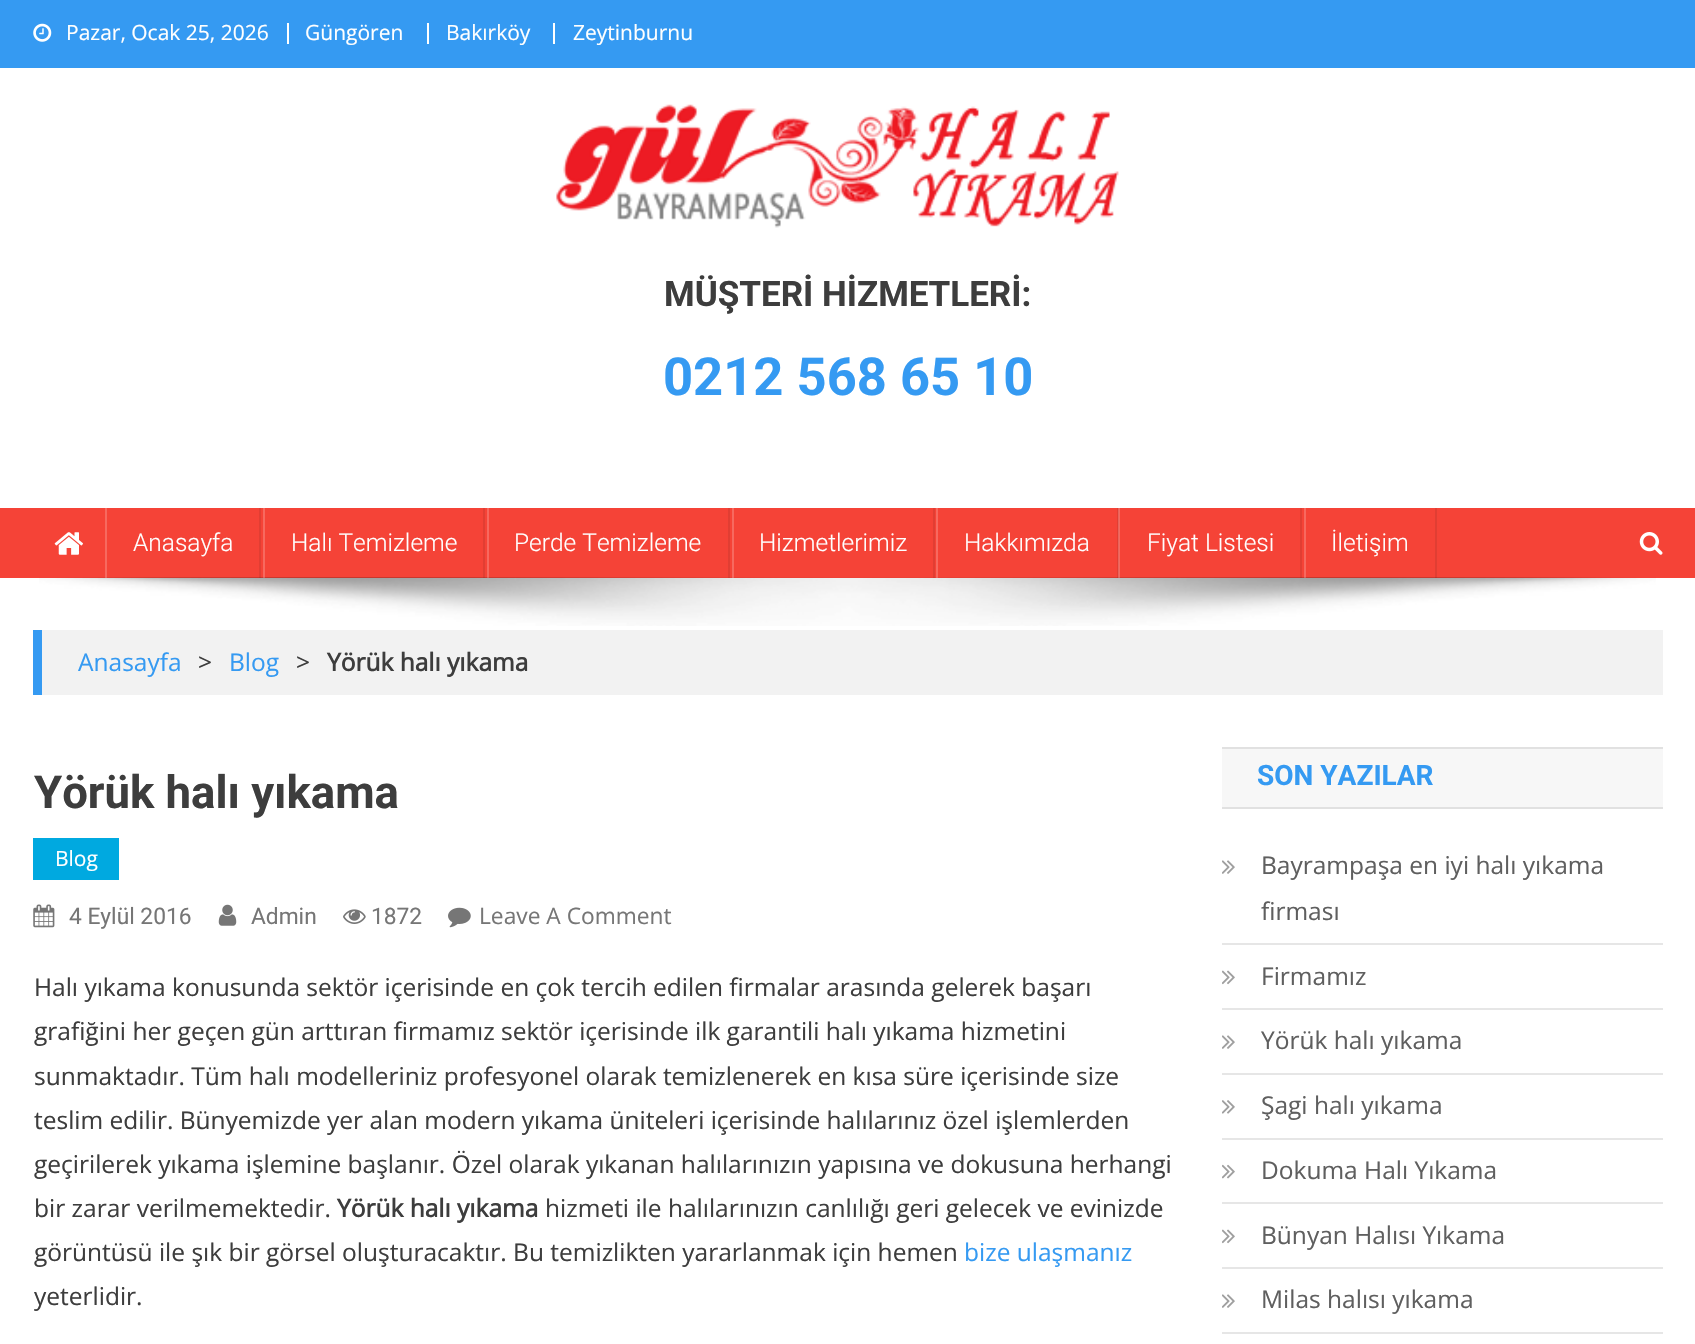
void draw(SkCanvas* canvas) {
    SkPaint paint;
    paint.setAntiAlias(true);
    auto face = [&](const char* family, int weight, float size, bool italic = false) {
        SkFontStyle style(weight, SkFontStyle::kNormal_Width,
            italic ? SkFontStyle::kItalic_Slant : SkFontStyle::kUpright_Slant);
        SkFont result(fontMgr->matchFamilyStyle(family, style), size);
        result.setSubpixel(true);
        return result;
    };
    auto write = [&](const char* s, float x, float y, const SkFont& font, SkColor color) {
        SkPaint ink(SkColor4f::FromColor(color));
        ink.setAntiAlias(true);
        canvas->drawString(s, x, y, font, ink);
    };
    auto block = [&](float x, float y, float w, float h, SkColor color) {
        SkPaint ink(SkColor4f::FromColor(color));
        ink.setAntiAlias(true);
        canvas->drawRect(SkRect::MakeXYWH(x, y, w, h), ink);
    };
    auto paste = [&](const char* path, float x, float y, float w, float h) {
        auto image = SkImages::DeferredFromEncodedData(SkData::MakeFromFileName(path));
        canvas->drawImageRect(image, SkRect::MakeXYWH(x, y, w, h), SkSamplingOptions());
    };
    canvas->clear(SK_ColorWHITE);
    block(0, 0, 1695, 68, SkColorSetRGB(53, 154, 242));
    paste("pic1.png", 33, 23, 19, 19);
    auto kFont1 = face("Open Sans", 400, 21);
    write("Pazar, Ocak 25, 2026", 66, 40, kFont1, SK_ColorWHITE);
    block(287, 23, 2, 21, SK_ColorWHITE);
    write("Güngören", 305, 40, kFont1, SK_ColorWHITE);
    block(427, 23, 2, 21, SK_ColorWHITE);
    write("Bakırköy", 446, 40, kFont1, SK_ColorWHITE);
    block(553, 23, 2, 21, SK_ColorWHITE);
    write("Zeytinburnu", 573, 40, kFont1, SK_ColorWHITE);
    paste("pic2.png", 556, 104, 563, 124);
    auto kFont2 = face("Roboto", 700, 35);
    write("MÜŞTERİ HİZMETLERİ:", 664, 306, kFont2, SkColorSetRGB(61, 61, 61));
    auto kFont3 = face("Roboto", 700, 52.5f);
    write("0212 568 65 10", 663, 395, kFont3, SkColorSetRGB(53, 154, 242));
    block(0, 508, 1695, 70, SkColorSetRGB(245, 67, 55));
    paste("pic3.png", 54, 532, 29, 23);
    paste("pic5.png", 39, 577, 1617, 49);
    block(259, 508, 2, 70, SkColorSetARGB(20, 0, 0, 0));
    block(105, 508, 2, 70, SkColorSetARGB(51, 255, 255, 255));
    auto kFont4 = face("Roboto", 300, 24.5f);
    write("Anasayfa", 133, 551, kFont4, SK_ColorWHITE);
    block(483, 508, 2, 70, SkColorSetARGB(20, 0, 0, 0));
    block(263, 508, 2, 70, SkColorSetARGB(51, 255, 255, 255));
    write("Halı Temizleme", 291, 551, kFont4, SK_ColorWHITE);
    block(728, 508, 2, 70, SkColorSetARGB(20, 0, 0, 0));
    block(487, 508, 2, 70, SkColorSetARGB(51, 255, 255, 255));
    write("Perde Temizleme", 514, 551, kFont4, SK_ColorWHITE);
    block(933, 508, 2, 70, SkColorSetARGB(20, 0, 0, 0));
    block(732, 508, 2, 70, SkColorSetARGB(51, 255, 255, 255));
    write("Hizmetlerimiz", 759, 551, kFont4, SK_ColorWHITE);
    block(1117, 508, 2, 70, SkColorSetARGB(20, 0, 0, 0));
    block(936, 508, 2, 70, SkColorSetARGB(51, 255, 255, 255));
    write("Hakkımızda", 964, 551, kFont4, SK_ColorWHITE);
    block(1300, 508, 2, 70, SkColorSetARGB(20, 0, 0, 0));
    block(1118, 508, 2, 70, SkColorSetARGB(51, 255, 255, 255));
    write("Fiyat Listesi", 1147, 551, kFont4, SK_ColorWHITE);
    block(1435, 508, 2, 70, SkColorSetARGB(20, 0, 0, 0));
    block(1304, 508, 2, 70, SkColorSetARGB(51, 255, 255, 255));
    write("İletişim", 1331, 551, kFont4, SK_ColorWHITE);
    paste("pic4.png", 1639, 532, 24, 23);
    block(42, 630, 1621, 65, SkColorSetRGB(242, 242, 242));
    block(33, 630, 9, 65, SkColorSetRGB(53, 154, 242));
    auto kFont5 = face("Open Sans", 400, 24.5f);
    write("Anasayfa", 78, 671, kFont5, SkColorSetRGB(53, 154, 242));
    write(">", 198, 671, kFont5, SkColorSetRGB(61, 61, 61));
    write("Blog", 229, 671, kFont5, SkColorSetRGB(53, 154, 242));
    write(">", 296, 671, kFont5, SkColorSetRGB(61, 61, 61));
    auto kFont6 = face("Open Sans", 700, 24.5f);
    write("Yörük halı yıkama", 327, 671, kFont6, SkColorSetRGB(61, 61, 61));
    auto kFont7 = face("Roboto", 700, 45.5f);
    write("Yörük halı yıkama", 34, 808, kFont7, SkColorSetRGB(61, 61, 61));
    block(33, 838, 86, 42, SkColorSetRGB(0, 169, 224));
    write("Blog", 55, 866, kFont1, SK_ColorWHITE);
    paste("pic6.png", 33, 904, 22, 24);
    auto kFont8 = face("Roboto", 400, 22.75f);
    write("4 Eylül 2016", 69, 924, kFont8, SkColorSetRGB(118, 118, 118));
    paste("pic7.png", 218, 904, 19, 22);
    write("Admin", 251, 924, kFont8, SkColorSetRGB(118, 118, 118));
    paste("pic8.png", 343, 909, 23, 15);
    write("1872", 371, 924, kFont8, SkColorSetRGB(118, 118, 118));
    paste("pic9.png", 448, 907, 23, 21);
    auto kFont9 = face("Open Sans", 400, 22.75f);
    write("Leave A Comment", 479, 924, kFont9, SkColorSetRGB(118, 118, 118));
    write("Halı yıkama konusunda sektör içerisinde en çok tercih edilen firmalar arasında gelerek başarı", 34, 996, kFont5, SkColorSetRGB(61, 61, 61));
    write("grafiğini her geçen gün arttıran firmamız sektör içerisinde ilk garantili halı yıkama hizmetini", 34, 1040, kFont5, SkColorSetRGB(61, 61, 61));
    write("sunmaktadır. Tüm halı modelleriniz profesyonel olarak temizlenerek en kısa süre içerisinde size", 34, 1085, kFont5, SkColorSetRGB(61, 61, 61));
    write("teslim edilir. Bünyemizde yer alan modern yıkama üniteleri içerisinde halılarınız özel işlemlerden", 34, 1129, kFont5, SkColorSetRGB(61, 61, 61));
    write("geçirilerek yıkama işlemine başlanır. Özel olarak yıkanan halılarınızın yapısına ve dokusuna herhangi", 34, 1173, kFont5, SkColorSetRGB(61, 61, 61));
    write("bir zarar verilmemektedir.", 34, 1217, kFont5, SkColorSetRGB(61, 61, 61));
    write("Yörük halı yıkama", 337, 1217, kFont6, SkColorSetRGB(61, 61, 61));
    write("hizmeti ile halılarınızın canlılığı geri gelecek ve evinizde", 545, 1217, kFont5, SkColorSetRGB(61, 61, 61));
    write("görüntüsü ile şık bir görsel oluşturacaktır. Bu temizlikten yararlanmak için hemen", 34, 1261, kFont5, SkColorSetRGB(61, 61, 61));
    write("bize ulaşmanız", 964, 1261, kFont5, SkColorSetRGB(53, 154, 242));
    write("yeterlidir.", 34, 1305, kFont5, SkColorSetRGB(61, 61, 61));
    block(1222, 749, 441, 58, SkColorSetRGB(247, 247, 247));
    block(1222, 747, 441, 2, SkColorSetRGB(225, 225, 225));
    block(1222, 807, 441, 2, SkColorSetRGB(225, 225, 225));
    auto kFont10 = face("Roboto", 700, 28);
    write("SON YAZILAR", 1257, 785, kFont10, SkColorSetRGB(53, 154, 242));
    block(1222, 943, 441, 2, SkColorSetRGB(230, 230, 230));
    paste("pic10.png", 1222, 860, 13, 14);
    write("Bayrampaşa en iyi halı yıkama", 1261, 874, kFont5, SkColorSetRGB(95, 95, 95));
    write("firması", 1261, 920, kFont5, SkColorSetRGB(95, 95, 95));
    block(1222, 1008, 441, 2, SkColorSetRGB(230, 230, 230));
    paste("pic11.png", 1222, 970, 13, 15);
    write("Firmamız", 1261, 985, kFont5, SkColorSetRGB(95, 95, 95));
    block(1222, 1073, 441, 2, SkColorSetRGB(230, 230, 230));
    paste("pic10.png", 1222, 1035, 13, 14);
    write("Yörük halı yıkama", 1261, 1049, kFont5, SkColorSetRGB(95, 95, 95));
    block(1222, 1138, 441, 2, SkColorSetRGB(230, 230, 230));
    paste("pic12.png", 1222, 1100, 13, 14);
    write("Şagi halı yıkama", 1261, 1114, kFont5, SkColorSetRGB(95, 95, 95));
    block(1222, 1202, 441, 2, SkColorSetRGB(230, 230, 230));
    paste("pic13.png", 1222, 1164, 13, 15);
    write("Dokuma Halı Yıkama", 1261, 1179, kFont5, SkColorSetRGB(95, 95, 95));
    block(1222, 1267, 441, 2, SkColorSetRGB(230, 230, 230));
    paste("pic11.png", 1222, 1229, 13, 15);
    write("Bünyan Halısı Yıkama", 1261, 1244, kFont5, SkColorSetRGB(95, 95, 95));
    block(1222, 1332, 441, 2, SkColorSetRGB(230, 230, 230));
    paste("pic10.png", 1222, 1294, 13, 14);
    write("Milas halısı yıkama", 1261, 1308, kFont5, SkColorSetRGB(95, 95, 95));
}
